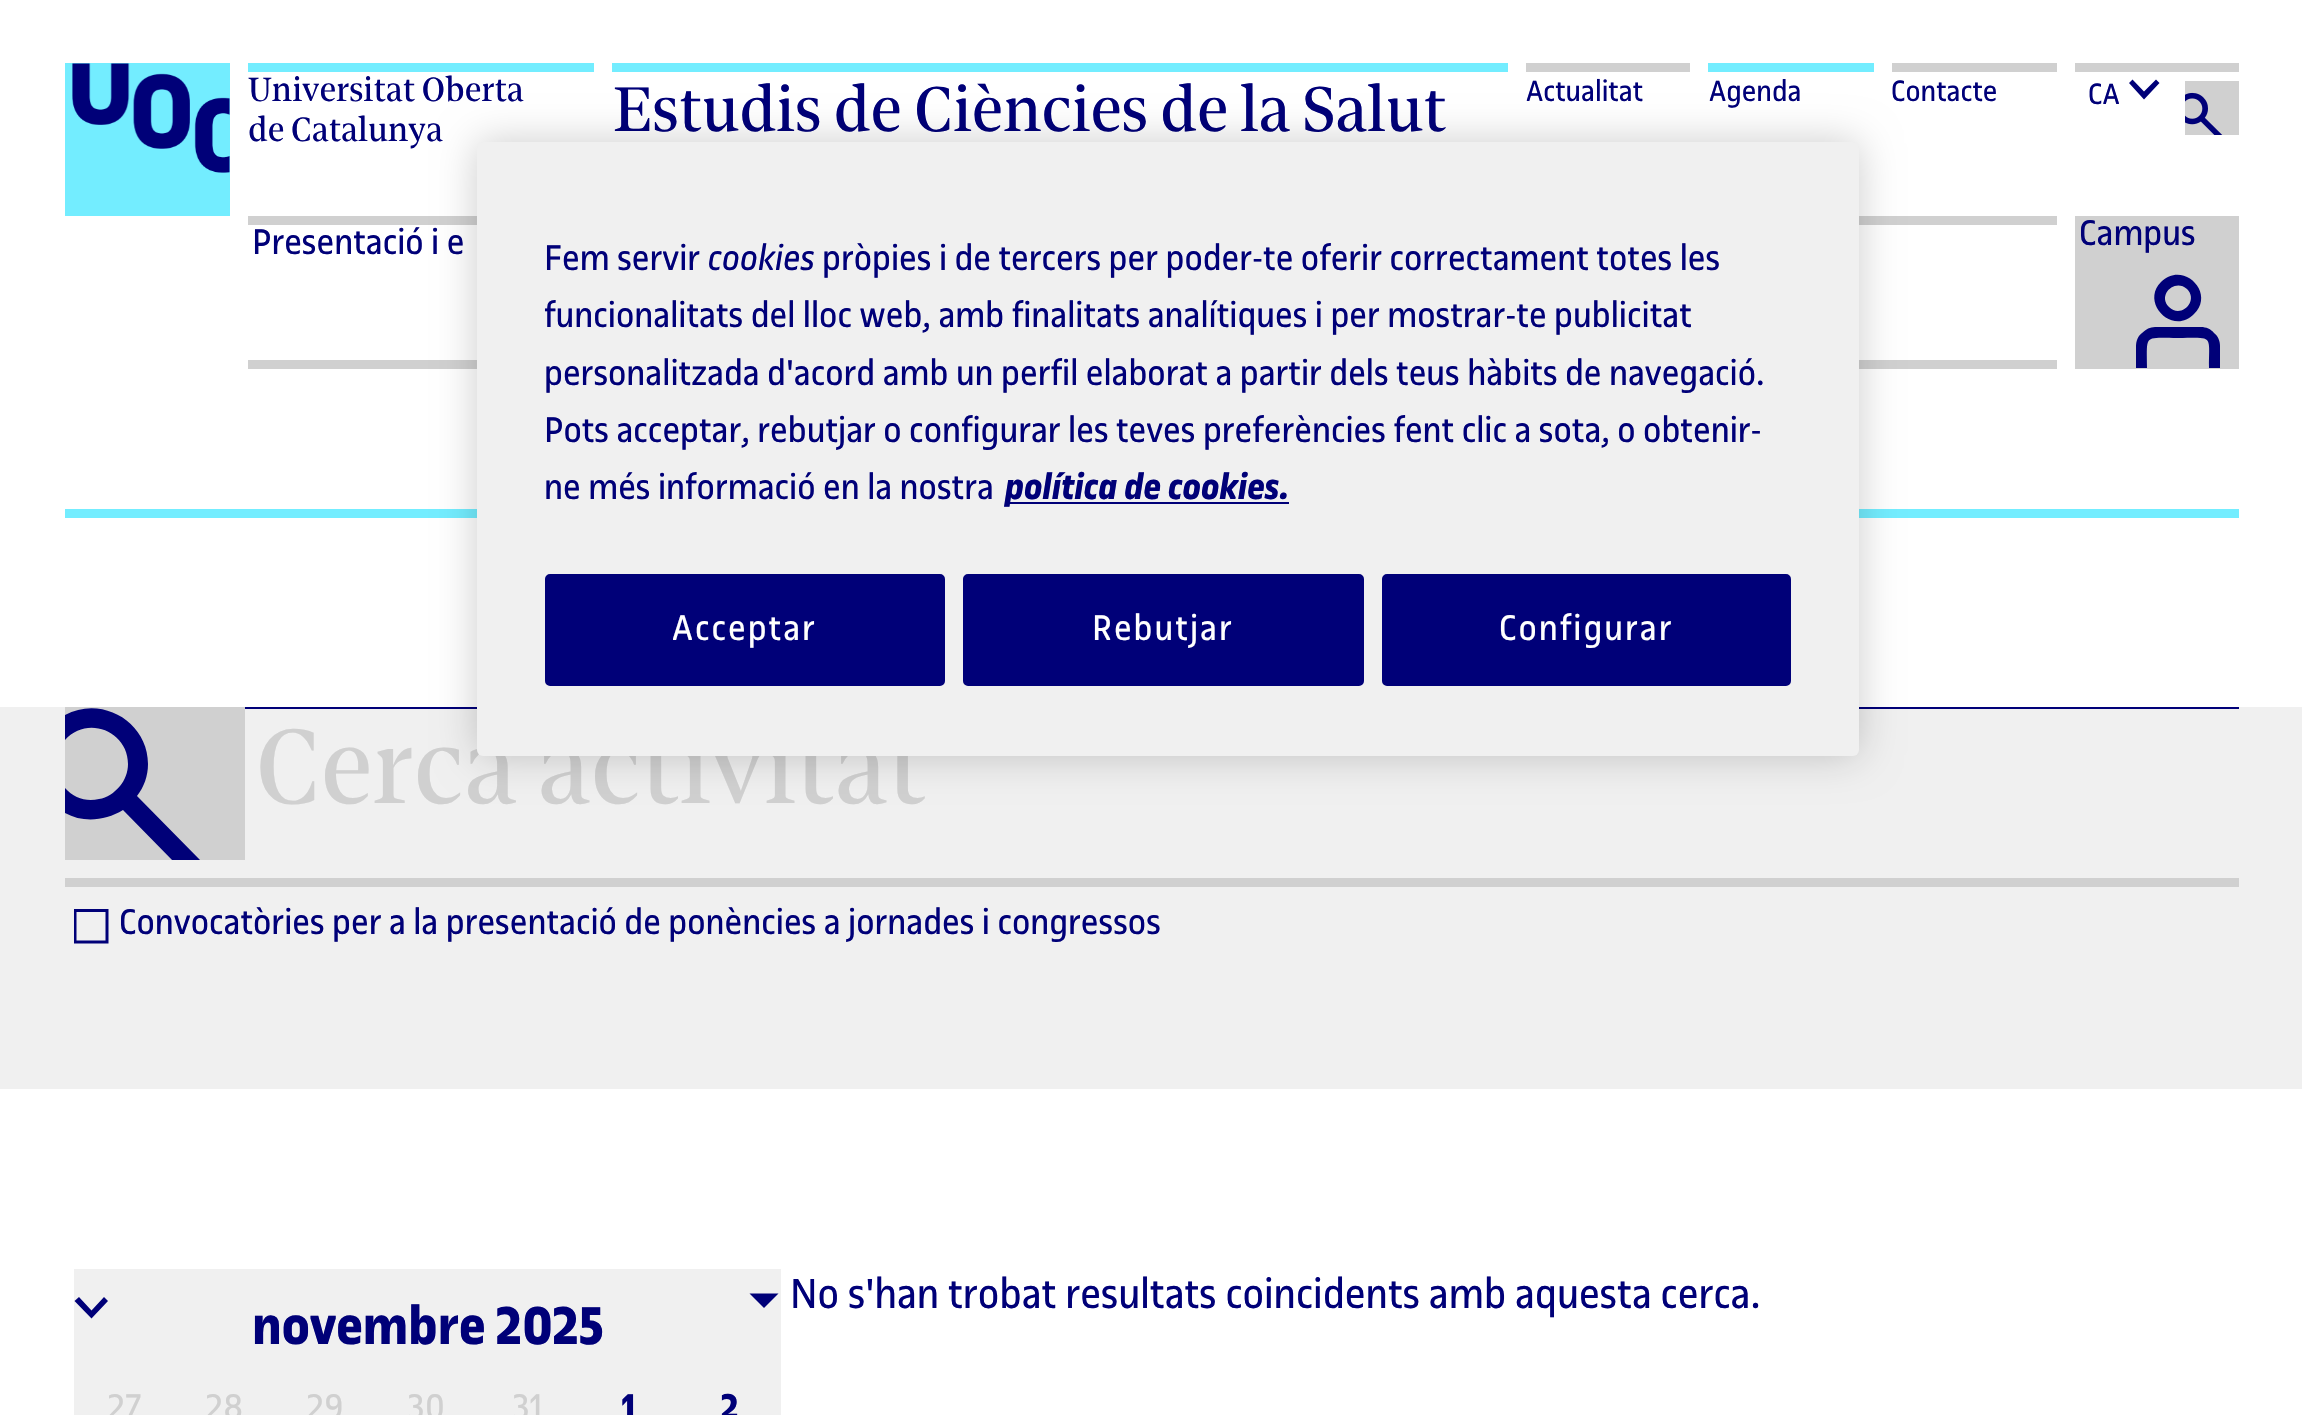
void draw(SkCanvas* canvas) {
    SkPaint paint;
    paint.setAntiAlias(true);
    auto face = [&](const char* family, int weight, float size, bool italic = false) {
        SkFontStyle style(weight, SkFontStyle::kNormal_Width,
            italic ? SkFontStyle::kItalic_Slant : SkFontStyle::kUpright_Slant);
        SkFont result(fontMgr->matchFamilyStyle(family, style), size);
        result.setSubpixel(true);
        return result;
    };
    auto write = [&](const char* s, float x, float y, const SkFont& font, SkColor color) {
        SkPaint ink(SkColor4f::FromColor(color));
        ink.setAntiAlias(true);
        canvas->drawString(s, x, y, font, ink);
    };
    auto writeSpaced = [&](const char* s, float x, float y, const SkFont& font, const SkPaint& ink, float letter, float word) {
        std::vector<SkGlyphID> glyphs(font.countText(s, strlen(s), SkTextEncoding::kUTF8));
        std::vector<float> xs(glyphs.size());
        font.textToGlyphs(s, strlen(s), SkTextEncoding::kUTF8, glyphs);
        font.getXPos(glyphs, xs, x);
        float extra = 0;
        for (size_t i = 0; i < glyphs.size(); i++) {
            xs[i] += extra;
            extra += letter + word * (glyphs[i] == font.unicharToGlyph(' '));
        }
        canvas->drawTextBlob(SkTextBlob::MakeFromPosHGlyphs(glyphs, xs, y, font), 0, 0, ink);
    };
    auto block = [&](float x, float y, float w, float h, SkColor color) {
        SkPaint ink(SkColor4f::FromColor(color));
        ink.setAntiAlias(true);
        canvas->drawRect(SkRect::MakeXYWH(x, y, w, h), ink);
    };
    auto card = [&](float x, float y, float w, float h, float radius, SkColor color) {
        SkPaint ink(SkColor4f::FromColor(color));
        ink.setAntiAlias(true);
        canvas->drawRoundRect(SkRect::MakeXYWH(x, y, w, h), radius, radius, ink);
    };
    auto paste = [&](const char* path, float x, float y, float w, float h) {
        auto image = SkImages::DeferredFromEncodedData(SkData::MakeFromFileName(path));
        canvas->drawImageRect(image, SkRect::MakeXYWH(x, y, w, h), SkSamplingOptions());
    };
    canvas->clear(SK_ColorWHITE);
    block(65, 63, 165, 153, SkColorSetRGB(115, 237, 255));
    paste("pic1.png", 72, 63, 158, 110);
    block(248, 63, 346, 9, SkColorSetRGB(115, 237, 255));
    auto kFont1 = face("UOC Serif", 400, 36);
    write("Universitat Oberta", 248, 101, kFont1, SkColorSetRGB(0, 0, 120));
    write("de Catalunya", 248, 141, kFont1, SkColorSetRGB(0, 0, 120));
    block(612, 63, 896, 9, SkColorSetRGB(115, 237, 255));
    auto kFont2 = face("UOC Serif", 400, 67.5f);
    write("Estudis de Ciències de la Salut", 613, 131, kFont2, SkColorSetRGB(0, 0, 120));
    block(1526, 63, 164, 9, SkColorSetRGB(208, 208, 208));
    auto kFont3 = face("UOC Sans", 400, 31.5f);
    write("Actualitat", 1526, 101, kFont3, SkColorSetRGB(0, 0, 120));
    block(1708, 63, 166, 9, SkColorSetRGB(115, 237, 255));
    write("Agenda", 1709, 101, kFont3, SkColorSetRGB(0, 0, 120));
    block(1892, 63, 165, 9, SkColorSetRGB(208, 208, 208));
    write("Contacte", 1891, 101, kFont3, SkColorSetRGB(0, 0, 120));
    block(2075, 63, 164, 9, SkColorSetRGB(208, 208, 208));
    write("CA", 2088, 104, kFont3, SkColorSetRGB(0, 0, 120));
    paint.setColor(SkColorSetRGB(0, 0, 120));
    canvas->drawPath(SkPathBuilder().moveTo(2144, 99.5f).lineTo(2129, 83).lineTo(2132.5f, 79.5f).lineTo(2144, 91.5f).lineTo(2156, 79.5f).lineTo(2159.5f, 83).close().detach(), paint);
    block(2185, 81, 54, 54, SkColorSetRGB(208, 208, 208));
    paste("pic2.png", 2185, 92, 38, 43);
    block(248, 216, 229, 9, SkColorSetRGB(208, 208, 208));
    block(248, 360, 229, 9, SkColorSetRGB(208, 208, 208));
    auto kFont4 = face("UOC Sans", 400, 38.25f);
    write("Presentació i e", 252, 254, kFont4, SkColorSetRGB(0, 0, 120));
    block(1859, 216, 198, 9, SkColorSetRGB(208, 208, 208));
    block(1859, 360, 198, 9, SkColorSetRGB(208, 208, 208));
    block(2075, 216, 164, 153, SkColorSetRGB(208, 208, 208));
    write("Campus", 2079, 245, kFont4, SkColorSetRGB(0, 0, 120));
    canvas->drawPath(SkPathBuilder().moveTo(2220, 368).lineTo(2209, 368).cubicTo(2209, 334, 2214, 338, 2178, 338).cubicTo(2143, 338, 2147, 334, 2147, 368).lineTo(2136, 368).lineTo(2136, 346).cubicTo(2136, 341, 2138, 336, 2142, 333).cubicTo(2146, 329, 2150, 327, 2155, 327).lineTo(2201, 327).cubicTo(2206, 327, 2211, 329, 2214, 333).cubicTo(2218, 336, 2220, 341, 2220, 346).close().moveTo(2194, 314).cubicTo(2173, 336, 2140, 303, 2161, 282).cubicTo(2183, 260, 2216, 293, 2194, 314).close().moveTo(2187, 289).cubicTo(2175, 278, 2157, 295, 2169, 307).cubicTo(2181, 319, 2199, 301, 2187, 289).close().detach(), paint);
    block(65, 509, 412, 9, SkColorSetRGB(115, 237, 255));
    block(1859, 509, 380, 9, SkColorSetRGB(115, 237, 255));
    block(0, 707, 2302, 382, SkColorSetRGB(240, 240, 240));
    block(65, 707, 180, 153, SkColorSetRGB(208, 208, 208));
    canvas->save();
    canvas->clipRect(SkRect::MakeXYWH(65, 707, 180, 153));
    canvas->drawPath(SkPathBuilder().moveTo(202, 862).lineTo(174, 862).lineTo(123, 810).cubicTo(105, 821, 83, 823, 65, 813).lineTo(65, 788).cubicTo(74, 798, 86, 802, 99, 799).cubicTo(107, 798, 114, 793, 120, 786).cubicTo(125, 780, 128, 772, 128, 764).cubicTo(128, 731, 87, 715, 65, 740).lineTo(65, 715).cubicTo(102, 695, 148, 722, 148, 764).cubicTo(148, 776, 144, 787, 137, 796).close().detach(), paint);
    canvas->restore();
    block(245, 707, 1994, 2, SkColorSetRGB(0, 0, 120));
    auto kFont5 = face("UOC Serif", 400, 112.5f);
    write("Cerca activitat", 255, 803, kFont5, SkColorSetRGB(208, 208, 208));
    block(65, 878, 2174, 9, SkColorSetRGB(208, 208, 208));
    canvas->drawPath(SkPathBuilder().moveTo(108.5f, 943.5f).lineTo(74, 943.5f).lineTo(74, 909).lineTo(108.5f, 909).close().moveTo(76.5f, 940.5f).lineTo(105.5f, 940.5f).lineTo(105.5f, 912).lineTo(76.5f, 912).close().detach(), paint);
    write("Convocatòries per a la presentació de ponències a jornades i congressos", 119, 934, kFont4, SkColorSetRGB(0, 0, 120));
    auto kFont6 = face("UOC Sans", 400, 45);
    write("No s'han trobat resultats coincidents amb aquesta cerca.", 790, 1308, kFont6, SkColorSetRGB(0, 0, 120));
    block(74, 1269, 707, 146, SkColorSetRGB(240, 240, 240));
    canvas->drawPath(SkPathBuilder().moveTo(91.5f, 1318.5f).lineTo(74.5f, 1301).lineTo(79, 1297).lineTo(91.5f, 1310.5f).lineTo(104, 1297).lineTo(108, 1301).close().detach(), paint);
    auto kFont7 = face("UOC Sans", 700, 56.75f);
    write("novembre 2025", 252, 1344, kFont7, SkColorSetRGB(0, 0, 120));
    canvas->drawPath(SkPathBuilder().moveTo(778.5f, 1293.5f).lineTo(764, 1308).lineTo(749.5f, 1293.5f).close().detach(), paint);
    write("27", 108, 1419, kFont4, SkColorSetRGB(208, 208, 208));
    write("28", 206, 1419, kFont4, SkColorSetRGB(208, 208, 208));
    write("29", 307, 1419, kFont4, SkColorSetRGB(208, 208, 208));
    write("30", 408, 1419, kFont4, SkColorSetRGB(208, 208, 208));
    write("31", 513, 1419, kFont4, SkColorSetRGB(208, 208, 208));
    auto kFont8 = face("UOC Sans", 700, 38.25f);
    write("1", 622, 1419, kFont8, SkColorSetRGB(0, 0, 120));
    write("2", 721, 1419, kFont8, SkColorSetRGB(0, 0, 120));
    paint.setColor(SkColorSetARGB(51, 0, 0, 0));
    paint.setMaskFilter(SkMaskFilter::MakeBlur(kNormal_SkBlurStyle, 20));
    canvas->drawRoundRect(SkRect::MakeXYWH(477, 142, 1382, 614), 6, 6, paint);
    paint.setMaskFilter(nullptr);
    card(477, 142, 1382, 614, 6, SkColorSetRGB(240, 240, 240));
    write("Fem servir", 544, 270, kFont4, SkColorSetRGB(0, 0, 120));
    auto kFont9 = face("UOC Sans", 400, 38.25f, true);
    write("cookies", 708, 270, kFont9, SkColorSetRGB(0, 0, 120));
    write("pròpies i de tercers per poder-te oferir correctament totes les", 822, 270, kFont4, SkColorSetRGB(0, 0, 120));
    write("funcionalitats del lloc web, amb finalitats analítiques i per mostrar-te publicitat", 544, 327, kFont4, SkColorSetRGB(0, 0, 120));
    write("personalitzada d'acord amb un perfil elaborat a partir dels teus hàbits de navegació.", 544, 385, kFont4, SkColorSetRGB(0, 0, 120));
    write("Pots acceptar, rebutjar o configurar les teves preferències fent clic a sota, o obtenir-", 544, 442, kFont4, SkColorSetRGB(0, 0, 120));
    write("ne més informació en la nostra", 544, 499, kFont4, SkColorSetRGB(0, 0, 120));
    block(1006, 502, 283, 2, SkColorSetRGB(0, 0, 120));
    auto kFont10 = face("UOC Sans", 700, 38.25f, true);
    write("política de cookies.", 1005, 499, kFont10, SkColorSetRGB(0, 0, 120));
    paint.setColor(SkColorSetRGB(0, 0, 120));
    canvas->drawRoundRect(SkRect::MakeXYWH(546, 575, 398, 110), 4, 4, paint);
    paint.setStyle(SkPaint::kStroke_Style);
    paint.setStrokeWidth(2);
    canvas->drawRoundRect(SkRect::MakeXYWH(546, 575, 398, 110), 4, 4, paint);
    paint.setStyle(SkPaint::kFill_Style);
    paint.setColor(SK_ColorWHITE);
    writeSpaced("Acceptar", 672, 640, kFont4, paint, 2, 0);
    paint.setColor(SkColorSetRGB(0, 0, 120));
    canvas->drawRoundRect(SkRect::MakeXYWH(964, 575, 399, 110), 4, 4, paint);
    paint.setStyle(SkPaint::kStroke_Style);
    canvas->drawRoundRect(SkRect::MakeXYWH(964, 575, 399, 110), 4, 4, paint);
    paint.setStyle(SkPaint::kFill_Style);
    paint.setColor(SK_ColorWHITE);
    writeSpaced("Rebutjar", 1092, 640, kFont4, paint, 2, 0);
    paint.setColor(SkColorSetRGB(0, 0, 120));
    canvas->drawRoundRect(SkRect::MakeXYWH(1383, 575, 407, 110), 4, 4, paint);
    paint.setStyle(SkPaint::kStroke_Style);
    canvas->drawRoundRect(SkRect::MakeXYWH(1383, 575, 407, 110), 4, 4, paint);
    paint.setStyle(SkPaint::kFill_Style);
    paint.setColor(SK_ColorWHITE);
    writeSpaced("Configurar", 1499, 640, kFont4, paint, 2, 0);
}
